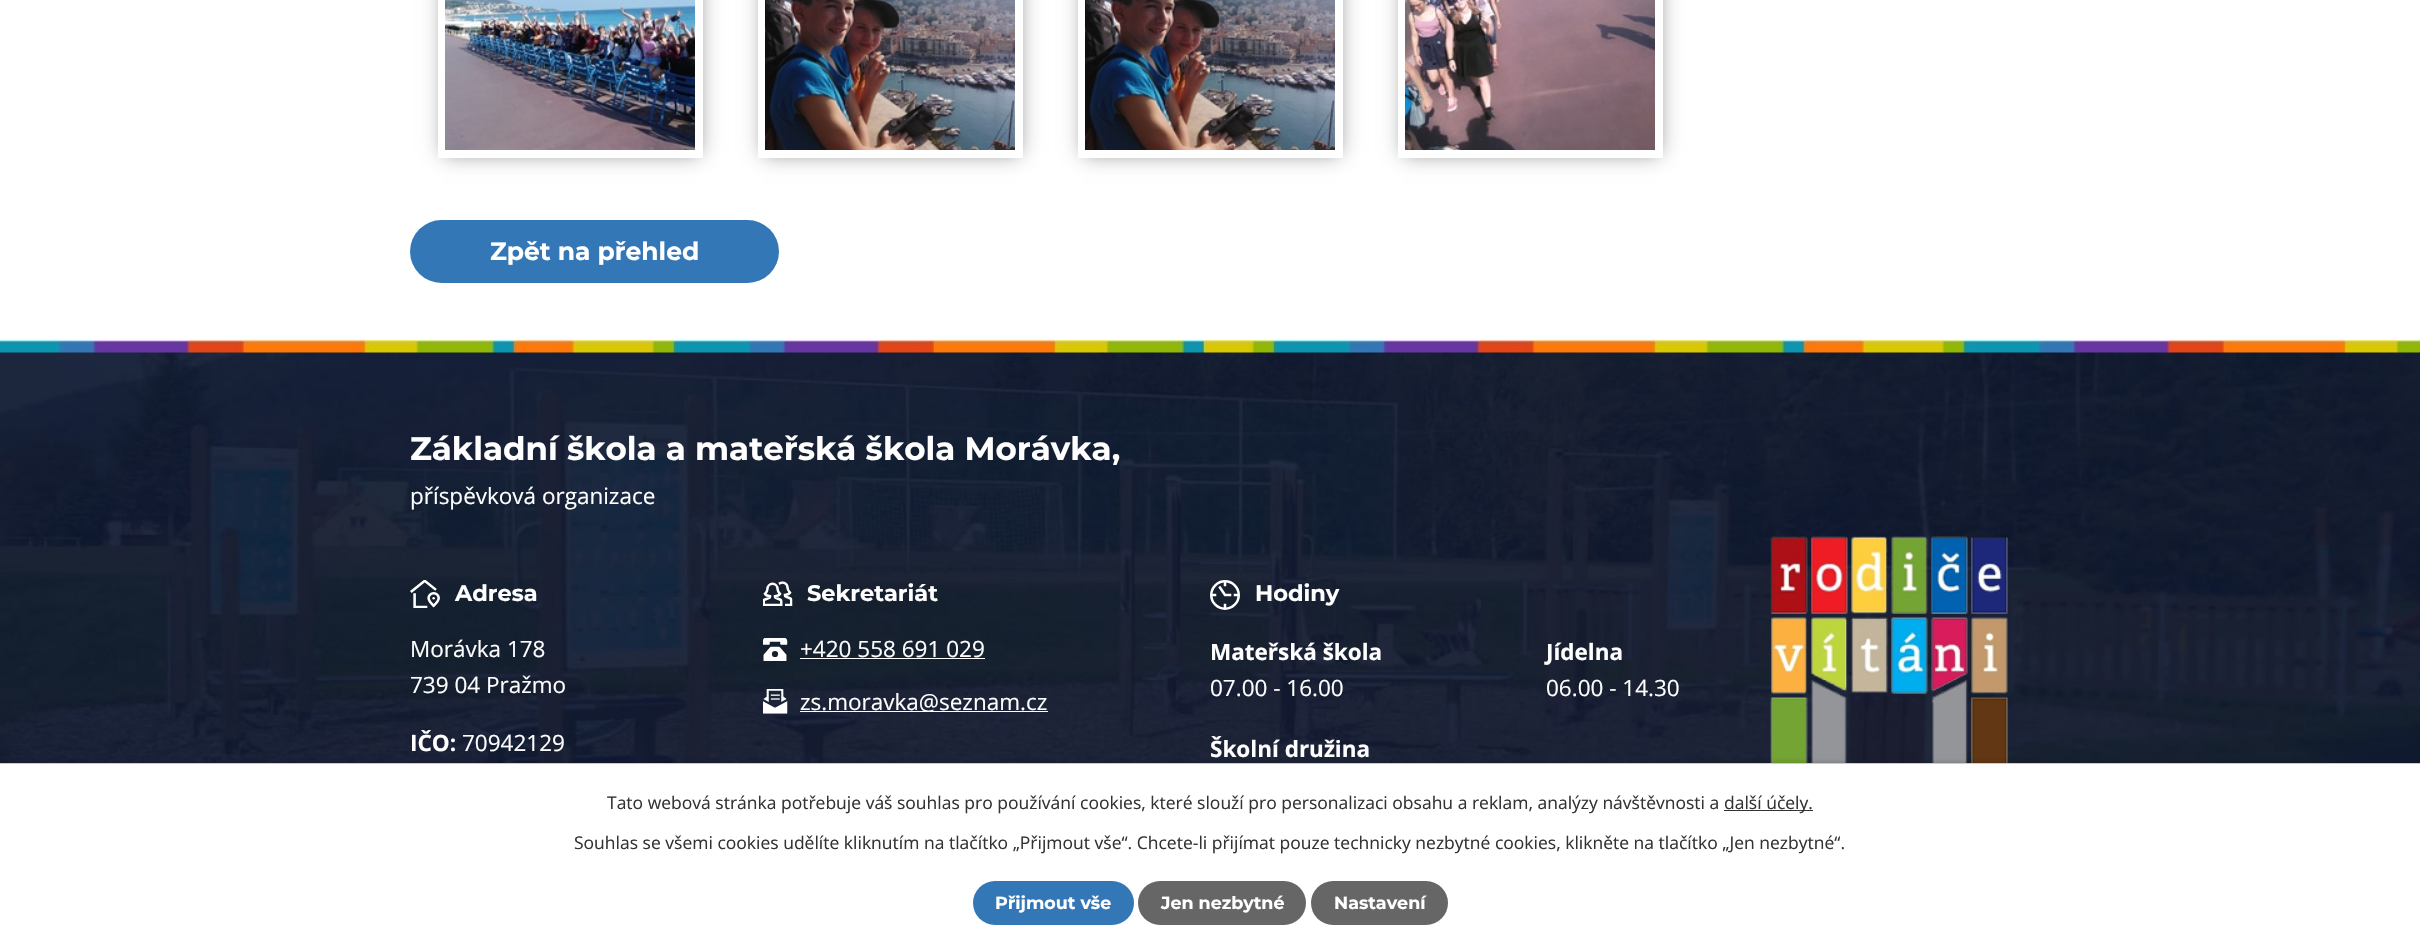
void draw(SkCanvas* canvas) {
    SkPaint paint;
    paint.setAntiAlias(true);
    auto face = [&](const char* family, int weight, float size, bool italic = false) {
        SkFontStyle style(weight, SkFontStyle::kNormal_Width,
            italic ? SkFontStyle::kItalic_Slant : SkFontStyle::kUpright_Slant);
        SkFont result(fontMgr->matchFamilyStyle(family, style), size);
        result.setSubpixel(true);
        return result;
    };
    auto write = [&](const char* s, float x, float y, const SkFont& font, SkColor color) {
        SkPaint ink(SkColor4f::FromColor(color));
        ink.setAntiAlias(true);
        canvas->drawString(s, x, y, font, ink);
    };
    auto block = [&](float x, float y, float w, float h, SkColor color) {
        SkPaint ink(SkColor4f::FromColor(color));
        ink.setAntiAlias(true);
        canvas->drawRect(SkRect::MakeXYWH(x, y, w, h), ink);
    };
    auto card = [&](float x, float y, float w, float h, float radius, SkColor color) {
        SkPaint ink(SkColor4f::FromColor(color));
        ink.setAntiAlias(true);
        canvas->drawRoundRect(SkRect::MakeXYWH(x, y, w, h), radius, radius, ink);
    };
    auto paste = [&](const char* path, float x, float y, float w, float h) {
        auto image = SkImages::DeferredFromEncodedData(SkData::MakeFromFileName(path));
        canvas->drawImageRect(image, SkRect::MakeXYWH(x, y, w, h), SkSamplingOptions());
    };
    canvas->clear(SK_ColorWHITE);
    canvas->save();
    canvas->clipPath(SkPathBuilder(SkPathFillType::kEvenOdd).moveTo(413, 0).lineTo(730, 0).lineTo(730, 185).lineTo(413, 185).close().moveTo(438, -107).lineTo(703, -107).lineTo(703, 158).lineTo(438, 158).close().detach(), true);
    paint.setColor(SkColorSetRGB(136, 136, 136));
    paint.setMaskFilter(SkMaskFilter::MakeBlur(kNormal_SkBlurStyle, 10));
    canvas->drawRect(SkRect::MakeXYWH(444, -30, 255, 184), paint);
    paint.setMaskFilter(nullptr);
    canvas->restore();
    paste("pic1.png", 445, 0, 250, 150);
    canvas->save();
    canvas->clipPath(SkPathBuilder(SkPathFillType::kEvenOdd).moveTo(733, 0).lineTo(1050, 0).lineTo(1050, 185).lineTo(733, 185).close().moveTo(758, -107).lineTo(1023, -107).lineTo(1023, 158).lineTo(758, 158).close().detach(), true);
    paint.setMaskFilter(SkMaskFilter::MakeBlur(kNormal_SkBlurStyle, 10));
    canvas->drawRect(SkRect::MakeXYWH(764, -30, 255, 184), paint);
    paint.setMaskFilter(nullptr);
    canvas->restore();
    paste("pic2.png", 765, 0, 250, 150);
    canvas->save();
    canvas->clipPath(SkPathBuilder(SkPathFillType::kEvenOdd).moveTo(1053, 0).lineTo(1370, 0).lineTo(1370, 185).lineTo(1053, 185).close().moveTo(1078, -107).lineTo(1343, -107).lineTo(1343, 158).lineTo(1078, 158).close().detach(), true);
    paint.setMaskFilter(SkMaskFilter::MakeBlur(kNormal_SkBlurStyle, 10));
    canvas->drawRect(SkRect::MakeXYWH(1084, -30, 255, 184), paint);
    paint.setMaskFilter(nullptr);
    canvas->restore();
    paste("pic3.png", 1085, 0, 250, 150);
    canvas->save();
    canvas->clipPath(SkPathBuilder(SkPathFillType::kEvenOdd).moveTo(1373, 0).lineTo(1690, 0).lineTo(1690, 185).lineTo(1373, 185).close().moveTo(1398, -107).lineTo(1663, -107).lineTo(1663, 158).lineTo(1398, 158).close().detach(), true);
    paint.setMaskFilter(SkMaskFilter::MakeBlur(kNormal_SkBlurStyle, 10));
    canvas->drawRect(SkRect::MakeXYWH(1404, -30, 255, 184), paint);
    paint.setMaskFilter(nullptr);
    canvas->restore();
    paste("pic4.png", 1405, 0, 250, 150);
    card(410, 220, 369, 63, 31.5f, SkColorSetRGB(52, 119, 183));
    auto kFont1 = face("Montserrat", 700, 25);
    write("Zpět na přehled", 490, 260, kFont1, SK_ColorWHITE);
    paste("pic5.png", 0, 352, 2420, 411);
    paste("pic6.png", 0, 340, 2420, 13);
    auto kFont2 = face("Montserrat", 700, 32.5f);
    write("Základní škola a mateřská škola Morávka,", 410, 460, kFont2, SK_ColorWHITE);
    auto kFont3 = face("Open Sans", 400, 22.5f);
    write("příspěvková organizace", 410, 504, kFont3, SK_ColorWHITE);
    paste("pic7.png", 410, 580, 30, 28);
    auto kFont4 = face("Montserrat", 700, 22.5f);
    write("Adresa", 455, 601, kFont4, SK_ColorWHITE);
    write("Morávka 178", 410, 657, kFont3, SK_ColorWHITE);
    write("739 04 Pražmo", 410, 693, kFont3, SK_ColorWHITE);
    auto kFont5 = face("Open Sans", 700, 22.5f);
    write("IČO:", 410, 751, kFont5, SK_ColorWHITE);
    write("70942129", 462, 751, kFont3, SK_ColorWHITE);
    paste("pic8.png", 763, 581, 30, 25);
    write("Sekretariát", 807, 601, kFont4, SK_ColorWHITE);
    paste("pic9.png", 763, 638, 25, 23);
    write("+420 558 691 029", 800, 657, kFont3, SK_ColorWHITE);
    block(800, 658, 185, 1, SK_ColorWHITE);
    paste("pic10.png", 763, 689, 25, 25);
    block(800, 711, 248, 1, SK_ColorWHITE);
    write("zs.moravka@seznam.cz", 800, 710, kFont3, SK_ColorWHITE);
    paste("pic11.png", 1210, 580, 30, 30);
    write("Hodiny", 1255, 601, kFont4, SK_ColorWHITE);
    write("Mateřská škola", 1210, 660, kFont5, SK_ColorWHITE);
    write("07.00 - 16.00", 1210, 696, kFont3, SK_ColorWHITE);
    write("Jídelna", 1546, 660, kFont5, SK_ColorWHITE);
    write("06.00 - 14.30", 1546, 696, kFont3, SK_ColorWHITE);
    write("Školní družina", 1210, 757, kFont5, SK_ColorWHITE);
    paste("pic12.png", 1770, 536, 238, 227);
    paint.setColor(SkColorSetARGB(51, 0, 0, 0));
    paint.setMaskFilter(SkMaskFilter::MakeBlur(kNormal_SkBlurStyle, 3));
    canvas->drawRect(SkRect::MakeXYWH(0, 763, 2420, 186), paint);
    paint.setMaskFilter(nullptr);
    block(0, 764, 2420, 184, SK_ColorWHITE);
    block(0, 763, 2420, 1, SkColorSetRGB(204, 204, 204));
    auto kFont6 = face("Open Sans", 400, 17.5f);
    write("Tato webová stránka potřebuje váš souhlas pro používání cookies, které slouží pro personalizaci obsahu a reklam, analýzy návštěvnosti a", 607, 809, kFont6, SkColorSetRGB(51, 51, 51));
    block(1724, 810, 89, 1, SkColorSetRGB(51, 51, 51));
    write("další účely.", 1724, 809, kFont6, SkColorSetRGB(51, 51, 51));
    write("Souhlas se všemi cookies udělíte kliknutím na tlačítko „Přijmout vše“. Chcete-li přijímat pouze technicky nezbytné cookies, klikněte na tlačítko „Jen nezbytné“.", 574, 849, kFont6, SkColorSetRGB(51, 51, 51));
    card(973, 881, 161, 44, 22, SkColorSetRGB(52, 119, 183));
    auto kFont7 = face("Montserrat", 700, 17.5f);
    write("Přijmout vše", 995, 909, kFont7, SK_ColorWHITE);
    card(1138, 881, 168, 44, 22, SkColorSetRGB(102, 102, 102));
    write("Jen nezbytné", 1161, 909, kFont7, SK_ColorWHITE);
    card(1311, 881, 137, 44, 22, SkColorSetRGB(102, 102, 102));
    write("Nastavení", 1334, 909, kFont7, SK_ColorWHITE);
}
